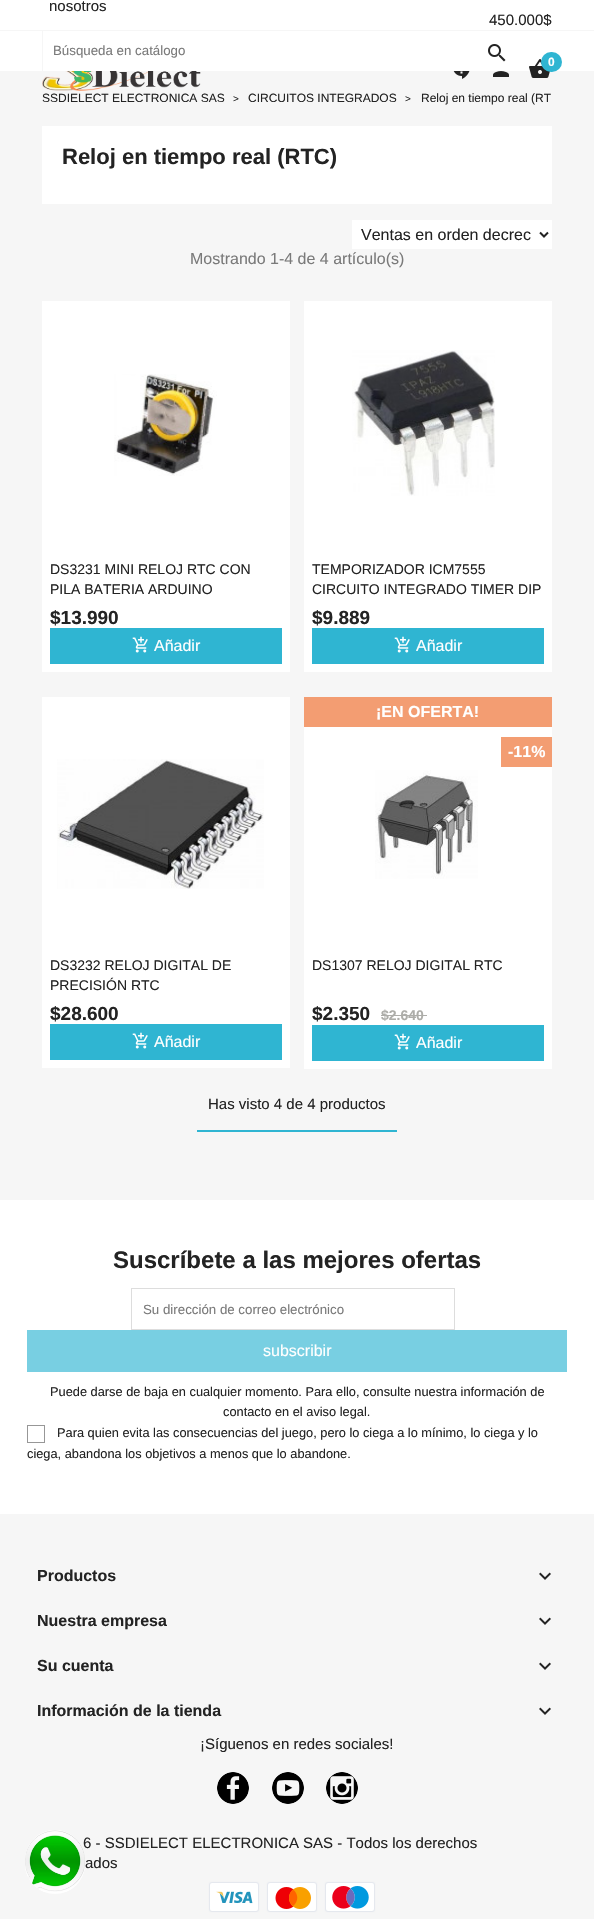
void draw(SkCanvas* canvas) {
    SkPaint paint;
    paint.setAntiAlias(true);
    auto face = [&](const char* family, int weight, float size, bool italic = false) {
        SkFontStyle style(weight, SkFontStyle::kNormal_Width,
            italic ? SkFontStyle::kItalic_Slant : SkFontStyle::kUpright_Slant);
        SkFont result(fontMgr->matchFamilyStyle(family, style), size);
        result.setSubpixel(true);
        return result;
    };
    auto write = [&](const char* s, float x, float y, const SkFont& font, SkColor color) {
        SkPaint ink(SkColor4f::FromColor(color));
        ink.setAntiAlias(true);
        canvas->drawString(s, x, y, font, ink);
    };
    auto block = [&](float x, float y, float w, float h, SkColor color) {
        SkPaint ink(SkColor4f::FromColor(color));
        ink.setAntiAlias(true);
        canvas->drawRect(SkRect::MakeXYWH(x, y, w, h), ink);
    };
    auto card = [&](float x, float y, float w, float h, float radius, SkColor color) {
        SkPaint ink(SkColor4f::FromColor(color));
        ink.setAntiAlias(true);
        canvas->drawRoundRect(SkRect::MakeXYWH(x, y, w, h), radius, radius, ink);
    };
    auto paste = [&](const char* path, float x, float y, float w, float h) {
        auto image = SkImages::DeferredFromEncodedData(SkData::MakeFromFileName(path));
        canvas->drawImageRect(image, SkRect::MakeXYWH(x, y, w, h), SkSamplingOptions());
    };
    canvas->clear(SK_ColorWHITE);
    auto kFont1 = face("Liberation Sans", 400, 15);
    write("nosotros", 49, 11, kFont1, SkColorSetRGB(35, 35, 35));
    write("450.000$", 489, 25, kFont1, SkColorSetRGB(35, 35, 35));
    block(0, 71, 594, 1129, SkColorSetRGB(246, 246, 246));
    paste("pic1.png", 529, 59, 21, 19);
    card(541, 52, 21, 20, 10, SkColorSetRGB(47, 181, 210));
    auto kFont2 = face("Liberation Sans", 700, 12);
    write("0", 548, 66, kFont2, SK_ColorWHITE);
    paste("pic2.png", 42, 71, 159, 20);
    paste("pic3.png", 453, 71, 17, 8);
    paste("pic4.png", 493, 71, 16, 6);
    block(0, 30, 594, 1, SkColorSetRGB(246, 246, 246));
    block(42, 31, 1, 40, SkColorSetRGB(246, 246, 246));
    auto kFont3 = face("Liberation Sans", 400, 13.3f);
    write("Búsqueda en catálogo", 53, 55, kFont3, SkColorSetRGB(122, 122, 122));
    paste("pic5.png", 488, 44, 18, 18);
    auto kFont4 = face("Liberation Sans", 400, 12);
    write("SSDIELECT ELECTRONICA SAS", 42, 102, kFont4, SkColorSetRGB(35, 35, 35));
    auto kFont5 = face("Liberation Sans", 400, 10);
    write(">", 233, 102, kFont5, SkColorSetRGB(35, 35, 35));
    write("CIRCUITOS INTEGRADOS", 248, 102, kFont4, SkColorSetRGB(35, 35, 35));
    write(">", 405, 102, kFont5, SkColorSetRGB(35, 35, 35));
    write("Reloj en tiempo real (RT", 421, 102, kFont4, SkColorSetRGB(35, 35, 35));
    block(42, 126, 510, 78, SK_ColorWHITE);
    auto kFont6 = face("Liberation Sans", 700, 22);
    write("Reloj en tiempo real (RTC)", 62, 164, kFont6, SkColorSetRGB(35, 35, 35));
    block(352, 220, 200, 29, SK_ColorWHITE);
    paint.setStyle(SkPaint::kStroke_Style);
    paint.setStrokeWidth(2);
    paint.setColor(SkColorSetRGB(35, 35, 35));
    canvas->drawPath(SkPathBuilder().moveTo(540, 232.5f).lineTo(544, 236.5f).lineTo(548, 232.5f).detach(), paint);
    auto kFont7 = face("Liberation Sans", 400, 16);
    write("Ventas en orden decrec", 361, 240, kFont7, SkColorSetRGB(35, 35, 35));
    write("Mostrando 1-4 de 4 artículo(s)", 190, 264, kFont7, SkColorSetRGB(122, 122, 122));
    block(42, 301, 248, 371, SK_ColorWHITE);
    paste("pic6.png", 114, 374, 103, 102);
    auto kFont8 = face("Liberation Sans", 400, 14);
    write("DS3231 MINI RELOJ RTC CON", 50, 574, kFont8, SkColorSetRGB(35, 35, 35));
    write("PILA BATERIA ARDUINO", 50, 594, kFont8, SkColorSetRGB(35, 35, 35));
    auto kFont9 = face("Liberation Sans", 700, 19);
    write("$13.990", 50, 624, kFont9, SkColorSetRGB(35, 35, 35));
    block(50, 628, 232, 36, SkColorSetRGB(47, 181, 210));
    paste("pic7.png", 132, 636, 16, 17);
    write("Añadir", 154, 651, kFont7, SK_ColorWHITE);
    block(304, 301, 248, 371, SK_ColorWHITE);
    paste("pic8.png", 352, 350, 143, 146);
    write("TEMPORIZADOR ICM7555", 312, 574, kFont8, SkColorSetRGB(35, 35, 35));
    write("CIRCUITO INTEGRADO TIMER DIP", 312, 594, kFont8, SkColorSetRGB(35, 35, 35));
    write("$9.889", 312, 624, kFont9, SkColorSetRGB(35, 35, 35));
    block(312, 628, 232, 36, SkColorSetRGB(47, 181, 210));
    paste("pic7.png", 394, 636, 16, 17);
    write("Añadir", 416, 651, kFont7, SK_ColorWHITE);
    block(42, 697, 248, 371, SK_ColorWHITE);
    paste("pic9.png", 57, 759, 207, 130);
    write("DS3232 RELOJ DIGITAL DE", 50, 970, kFont8, SkColorSetRGB(35, 35, 35));
    write("PRECISIÓN RTC", 50, 990, kFont8, SkColorSetRGB(35, 35, 35));
    write("$28.600", 50, 1020, kFont9, SkColorSetRGB(35, 35, 35));
    block(50, 1024, 232, 36, SkColorSetRGB(47, 181, 210));
    paste("pic7.png", 132, 1032, 16, 17);
    write("Añadir", 154, 1047, kFont7, SK_ColorWHITE);
    block(304, 727, 248, 342, SK_ColorWHITE);
    block(304, 697, 248, 30, SkColorSetRGB(243, 157, 114));
    auto kFont10 = face("Liberation Sans", 700, 16);
    write("¡EN OFERTA!", 376, 717, kFont10, SK_ColorWHITE);
    block(501, 737, 51, 30, SkColorSetRGB(243, 157, 114));
    write("-11%", 508, 757, kFont10, SK_ColorWHITE);
    paste("pic10.png", 375, 770, 103, 109);
    write("DS1307 RELOJ DIGITAL RTC", 312, 970, kFont8, SkColorSetRGB(35, 35, 35));
    write("$2.350", 312, 1020, kFont9, SkColorSetRGB(35, 35, 35));
    auto kFont11 = face("Liberation Sans", 700, 14);
    write("$2.640", 381, 1020, kFont11, SkColorSetRGB(173, 173, 169));
    block(381, 1015, 46, 1, SkColorSetRGB(173, 173, 169));
    block(312, 1025, 232, 36, SkColorSetRGB(47, 181, 210));
    paste("pic7.png", 394, 1033, 16, 17);
    write("Añadir", 416, 1048, kFont7, SK_ColorWHITE);
    write("Has visto 4 de 4 productos", 208, 1109, kFont1, SkColorSetRGB(35, 35, 35));
    block(197, 1130, 200, 2, SkColorSetRGB(47, 181, 210));
    block(0, 1514, 594, 405, SkColorSetRGB(246, 246, 246));
    auto kFont12 = face("Liberation Sans", 700, 24);
    write("Suscríbete a las mejores ofertas", 113, 1268, kFont12, SkColorSetRGB(35, 35, 35));
    paint.setStrokeWidth(1);
    paint.setColor(SkColorSetRGB(221, 221, 221));
    canvas->drawRect(SkRect::MakeXYWH(131.5f, 1288.5f, 323, 41), paint);
    write("Su dirección de correo electrónico", 143, 1314, kFont3, SkColorSetRGB(122, 122, 122));
    block(27, 1330, 540, 42, SkColorSetRGB(120, 207, 226));
    write("subscribir", 263, 1356, kFont7, SK_ColorWHITE);
    auto kFont13 = face("Liberation Sans", 400, 12.8f);
    write("Puede darse de baja en cualquier momento. Para ello, consulte nuestra información de", 50, 1396, kFont13, SkColorSetRGB(35, 35, 35));
    write("contacto en el aviso legal.", 223, 1416, kFont13, SkColorSetRGB(35, 35, 35));
    paint.setColor(SkColorSetRGB(151, 151, 151));
    canvas->drawRect(SkRect::MakeXYWH(27.5f, 1425.5f, 17, 17), paint);
    write("Para quien evita las consecuencias del juego, pero lo ciega a lo mínimo, lo ciega y lo", 57, 1437, kFont13, SkColorSetRGB(35, 35, 35));
    write("ciega, abandona los objetivos a menos que lo abandone.", 27, 1458, kFont13, SkColorSetRGB(35, 35, 35));
    write("Productos", 37, 1581, kFont10, SkColorSetRGB(35, 35, 35));
    paste("pic11.png", 539, 1572, 12, 8);
    write("Nuestra empresa", 37, 1626, kFont10, SkColorSetRGB(35, 35, 35));
    paste("pic11.png", 539, 1617, 12, 8);
    write("Su cuenta", 37, 1671, kFont10, SkColorSetRGB(35, 35, 35));
    paste("pic11.png", 539, 1662, 12, 8);
    write("Información de la tienda", 37, 1716, kFont10, SkColorSetRGB(35, 35, 35));
    paste("pic11.png", 539, 1707, 12, 8);
    write("¡Síguenos en redes sociales!", 200, 1749, kFont1, SkColorSetRGB(35, 35, 35));
    paste("pic12.png", 217, 1772, 32, 32);
    paste("pic13.png", 272, 1772, 32, 32);
    paste("pic14.png", 326, 1772, 32, 32);
    write("6 - SSDIELECT ELECTRONICA SAS - Todos los derechos", 83, 1848, kFont1, SkColorSetRGB(35, 35, 35));
    write("ados", 85, 1868, kFont1, SkColorSetRGB(35, 35, 35));
    paint.setStyle(SkPaint::kFill_Style);
    paint.setColor(SkColorSetRGB(228, 231, 238));
    paint.setMaskFilter(SkMaskFilter::MakeBlur(kNormal_SkBlurStyle, 0.5f));
    canvas->drawRoundRect(SkRect::MakeXYWH(209, 1882, 50, 30), 3, 3, paint);
    paint.setMaskFilter(nullptr);
    card(210, 1883, 48, 28, 2, SK_ColorWHITE);
    paste("pic15.png", 216, 1891, 37, 13);
    paint.setMaskFilter(SkMaskFilter::MakeBlur(kNormal_SkBlurStyle, 0.5f));
    canvas->drawRoundRect(SkRect::MakeXYWH(267, 1882, 50, 30), 3, 3, paint);
    paint.setMaskFilter(nullptr);
    card(268, 1883, 48, 28, 2, SK_ColorWHITE);
    paste("pic16.png", 275, 1887, 36, 22);
    paint.setMaskFilter(SkMaskFilter::MakeBlur(kNormal_SkBlurStyle, 0.5f));
    canvas->drawRoundRect(SkRect::MakeXYWH(325, 1882, 50, 30), 3, 3, paint);
    paint.setMaskFilter(nullptr);
    card(326, 1883, 48, 28, 2, SK_ColorWHITE);
    paste("pic17.png", 332, 1886, 37, 23);
    card(25, 1830, 60, 64, 30, SK_ColorWHITE);
    paste("pic18.png", 25, 1830, 60, 62);
}
